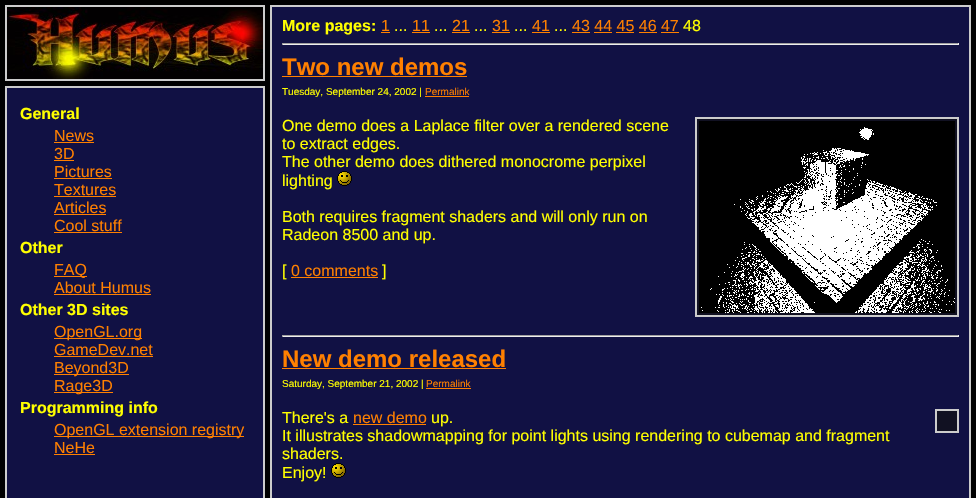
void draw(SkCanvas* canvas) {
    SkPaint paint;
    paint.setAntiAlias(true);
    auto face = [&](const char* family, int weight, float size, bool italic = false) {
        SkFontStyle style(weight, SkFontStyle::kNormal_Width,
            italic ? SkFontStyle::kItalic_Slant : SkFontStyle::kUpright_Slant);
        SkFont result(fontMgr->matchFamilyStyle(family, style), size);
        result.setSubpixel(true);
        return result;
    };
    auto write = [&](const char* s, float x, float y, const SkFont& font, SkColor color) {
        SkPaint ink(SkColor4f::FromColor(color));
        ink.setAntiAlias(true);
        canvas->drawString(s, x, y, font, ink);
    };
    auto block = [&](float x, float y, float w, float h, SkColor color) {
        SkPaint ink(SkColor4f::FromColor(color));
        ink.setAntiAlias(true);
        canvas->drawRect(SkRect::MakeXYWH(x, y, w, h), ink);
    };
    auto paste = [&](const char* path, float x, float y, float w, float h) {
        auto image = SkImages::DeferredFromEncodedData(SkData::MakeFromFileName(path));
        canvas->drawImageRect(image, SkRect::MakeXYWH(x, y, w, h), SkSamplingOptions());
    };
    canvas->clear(SK_ColorBLACK);
    paint.setStyle(SkPaint::kStroke_Style);
    paint.setStrokeWidth(2);
    paint.setColor(SkColorSetRGB(204, 204, 204));
    canvas->drawRect(SkRect::MakeXYWH(6, 6, 258, 74), paint);
    paste("pic1.png", 7, 7, 256, 72);
    paint.setStyle(SkPaint::kFill_Style);
    paint.setColor(SkColorSetRGB(17, 17, 68));
    canvas->drawRect(SkRect::MakeXYWH(271, 6, 699, 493), paint);
    paint.setStyle(SkPaint::kStroke_Style);
    paint.setColor(SkColorSetRGB(204, 204, 204));
    canvas->drawRect(SkRect::MakeXYWH(271, 6, 699, 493), paint);
    auto kFont1 = face("Liberation Sans", 700, 16);
    write("More pages:", 282, 31, kFont1, SkColorSetRGB(255, 255, 0));
    auto kFont2 = face("Liberation Sans", 400, 16);
    write("1", 381, 31, kFont2, SkColorSetRGB(255, 128, 0));
    block(381, 32, 9, 1, SkColorSetRGB(255, 128, 0));
    write("...", 394, 31, kFont2, SkColorSetRGB(255, 255, 0));
    write("11", 412, 31, kFont2, SkColorSetRGB(255, 128, 0));
    block(412, 32, 18, 1, SkColorSetRGB(255, 128, 0));
    write("...", 434, 31, kFont2, SkColorSetRGB(255, 255, 0));
    write("21", 452, 31, kFont2, SkColorSetRGB(255, 128, 0));
    block(452, 32, 18, 1, SkColorSetRGB(255, 128, 0));
    write("...", 474, 31, kFont2, SkColorSetRGB(255, 255, 0));
    write("31", 492, 31, kFont2, SkColorSetRGB(255, 128, 0));
    block(492, 32, 18, 1, SkColorSetRGB(255, 128, 0));
    write("...", 514, 31, kFont2, SkColorSetRGB(255, 255, 0));
    write("41", 532, 31, kFont2, SkColorSetRGB(255, 128, 0));
    block(532, 32, 18, 1, SkColorSetRGB(255, 128, 0));
    write("...", 554, 31, kFont2, SkColorSetRGB(255, 255, 0));
    write("43 44 45 46 47", 572, 31, kFont2, SkColorSetRGB(255, 128, 0));
    block(572, 32, 18, 1, SkColorSetRGB(255, 128, 0));
    write("48", 683, 31, kFont2, SkColorSetRGB(255, 255, 0));
    block(594, 32, 18, 1, SkColorSetRGB(255, 128, 0));
    block(616, 32, 18, 1, SkColorSetRGB(255, 128, 0));
    block(639, 32, 18, 1, SkColorSetRGB(255, 128, 0));
    block(661, 32, 18, 1, SkColorSetRGB(255, 128, 0));
    block(282, 43, 677, 1, SkColorSetRGB(159, 159, 159));
    block(958, 43, 1, 2, SkColorSetRGB(238, 238, 238));
    block(282, 44, 677, 1, SkColorSetRGB(238, 238, 238));
    block(282, 43, 1, 2, SkColorSetRGB(159, 159, 159));
    auto kFont3 = face("Liberation Sans", 700, 24);
    write("Two new demos", 282, 75, kFont3, SkColorSetRGB(255, 128, 0));
    block(282, 76, 185, 1, SkColorSetRGB(255, 128, 0));
    auto kFont4 = face("Liberation Sans", 400, 10);
    write("Tuesday, September 24, 2002 |", 282, 95, kFont4, SkColorSetRGB(255, 255, 0));
    write("Permalink", 425, 95, kFont4, SkColorSetRGB(255, 128, 0));
    block(425, 96, 44, 1, SkColorSetRGB(255, 128, 0));
    write("One demo does a Laplace filter over a rendered scene", 282, 131, kFont2, SkColorSetRGB(255, 255, 0));
    paint.setStyle(SkPaint::kFill_Style);
    paint.setColor(SkColorSetRGB(17, 17, 34));
    canvas->drawRect(SkRect::MakeXYWH(696, 118, 262, 198), paint);
    paint.setStyle(SkPaint::kStroke_Style);
    paint.setColor(SkColorSetRGB(204, 204, 204));
    canvas->drawRect(SkRect::MakeXYWH(696, 118, 262, 198), paint);
    paste("pic2.png", 699, 121, 256, 192);
    write("to extract edges.", 282, 149, kFont2, SkColorSetRGB(255, 255, 0));
    write("The other demo does dithered monocrome perpixel", 282, 167, kFont2, SkColorSetRGB(255, 255, 0));
    write("lighting", 282, 186, kFont2, SkColorSetRGB(255, 255, 0));
    paste("pic3.png", 337, 171, 15, 15);
    write("Both requires fragment shaders and will only run on", 282, 222, kFont2, SkColorSetRGB(255, 255, 0));
    write("Radeon 8500 and up.", 282, 240, kFont2, SkColorSetRGB(255, 255, 0));
    write("[", 282, 276, kFont2, SkColorSetRGB(255, 255, 0));
    write("0 comments", 291, 276, kFont2, SkColorSetRGB(255, 128, 0));
    block(291, 277, 87, 1, SkColorSetRGB(255, 128, 0));
    write("]", 382, 276, kFont2, SkColorSetRGB(255, 255, 0));
    block(282, 335, 677, 1, SkColorSetRGB(159, 159, 159));
    block(958, 335, 1, 2, SkColorSetRGB(238, 238, 238));
    block(282, 336, 677, 1, SkColorSetRGB(238, 238, 238));
    block(282, 335, 1, 2, SkColorSetRGB(159, 159, 159));
    write("New demo released", 282, 367, kFont3, SkColorSetRGB(255, 128, 0));
    block(282, 368, 224, 1, SkColorSetRGB(255, 128, 0));
    write("Saturday, September 21, 2002 |", 282, 387, kFont4, SkColorSetRGB(255, 255, 0));
    write("Permalink", 426, 387, kFont4, SkColorSetRGB(255, 128, 0));
    block(426, 388, 45, 1, SkColorSetRGB(255, 128, 0));
    write("There's a", 282, 423, kFont2, SkColorSetRGB(255, 255, 0));
    write("new demo", 353, 423, kFont2, SkColorSetRGB(255, 128, 0));
    block(353, 424, 73, 1, SkColorSetRGB(255, 128, 0));
    write("up.", 431, 423, kFont2, SkColorSetRGB(255, 255, 0));
    paint.setStyle(SkPaint::kFill_Style);
    paint.setColor(SkColorSetRGB(17, 17, 34));
    canvas->drawRect(SkRect::MakeXYWH(936, 410, 22, 22), paint);
    paint.setStyle(SkPaint::kStroke_Style);
    paint.setColor(SkColorSetRGB(204, 204, 204));
    canvas->drawRect(SkRect::MakeXYWH(936, 410, 22, 22), paint);
    write("It illustrates shadowmapping for point lights using rendering to cubemap and fragment", 282, 441, kFont2, SkColorSetRGB(255, 255, 0));
    write("shaders.", 282, 459, kFont2, SkColorSetRGB(255, 255, 0));
    write("Enjoy!", 282, 478, kFont2, SkColorSetRGB(255, 255, 0));
    paste("pic3.png", 331, 463, 15, 15);
    paint.setStyle(SkPaint::kFill_Style);
    paint.setColor(SkColorSetRGB(17, 17, 68));
    canvas->drawRect(SkRect::MakeXYWH(6, 87, 258, 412), paint);
    paint.setStyle(SkPaint::kStroke_Style);
    paint.setColor(SkColorSetRGB(204, 204, 204));
    canvas->drawRect(SkRect::MakeXYWH(6, 87, 258, 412), paint);
    write("General", 20, 119, kFont1, SkColorSetRGB(255, 255, 0));
    write("News", 54, 141, kFont2, SkColorSetRGB(255, 128, 0));
    block(54, 142, 40, 1, SkColorSetRGB(255, 128, 0));
    write("3D", 54, 159, kFont2, SkColorSetRGB(255, 128, 0));
    block(54, 160, 20, 1, SkColorSetRGB(255, 128, 0));
    write("Pictures", 54, 177, kFont2, SkColorSetRGB(255, 128, 0));
    block(54, 178, 58, 1, SkColorSetRGB(255, 128, 0));
    write("Textures", 54, 195, kFont2, SkColorSetRGB(255, 128, 0));
    block(54, 196, 62, 1, SkColorSetRGB(255, 128, 0));
    write("Articles", 54, 213, kFont2, SkColorSetRGB(255, 128, 0));
    block(54, 214, 52, 1, SkColorSetRGB(255, 128, 0));
    write("Cool stuff", 54, 231, kFont2, SkColorSetRGB(255, 128, 0));
    block(54, 232, 68, 1, SkColorSetRGB(255, 128, 0));
    write("Other", 20, 253, kFont1, SkColorSetRGB(255, 255, 0));
    block(54, 276, 33, 1, SkColorSetRGB(255, 128, 0));
    write("FAQ", 54, 275, kFont2, SkColorSetRGB(255, 128, 0));
    write("About Humus", 54, 293, kFont2, SkColorSetRGB(255, 128, 0));
    block(54, 294, 97, 1, SkColorSetRGB(255, 128, 0));
    write("Other 3D sites", 20, 315, kFont1, SkColorSetRGB(255, 255, 0));
    block(54, 338, 88, 1, SkColorSetRGB(255, 128, 0));
    write("OpenGL.org", 54, 337, kFont2, SkColorSetRGB(255, 128, 0));
    write("GameDev.net", 54, 355, kFont2, SkColorSetRGB(255, 128, 0));
    block(54, 356, 99, 1, SkColorSetRGB(255, 128, 0));
    block(54, 374, 75, 1, SkColorSetRGB(255, 128, 0));
    write("Beyond3D", 54, 373, kFont2, SkColorSetRGB(255, 128, 0));
    block(54, 392, 59, 1, SkColorSetRGB(255, 128, 0));
    write("Rage3D", 54, 391, kFont2, SkColorSetRGB(255, 128, 0));
    write("Programming info", 20, 413, kFont1, SkColorSetRGB(255, 255, 0));
    block(54, 436, 190, 1, SkColorSetRGB(255, 128, 0));
    write("OpenGL extension registry", 54, 435, kFont2, SkColorSetRGB(255, 128, 0));
    write("NeHe", 54, 453, kFont2, SkColorSetRGB(255, 128, 0));
    block(54, 454, 41, 1, SkColorSetRGB(255, 128, 0));
}
